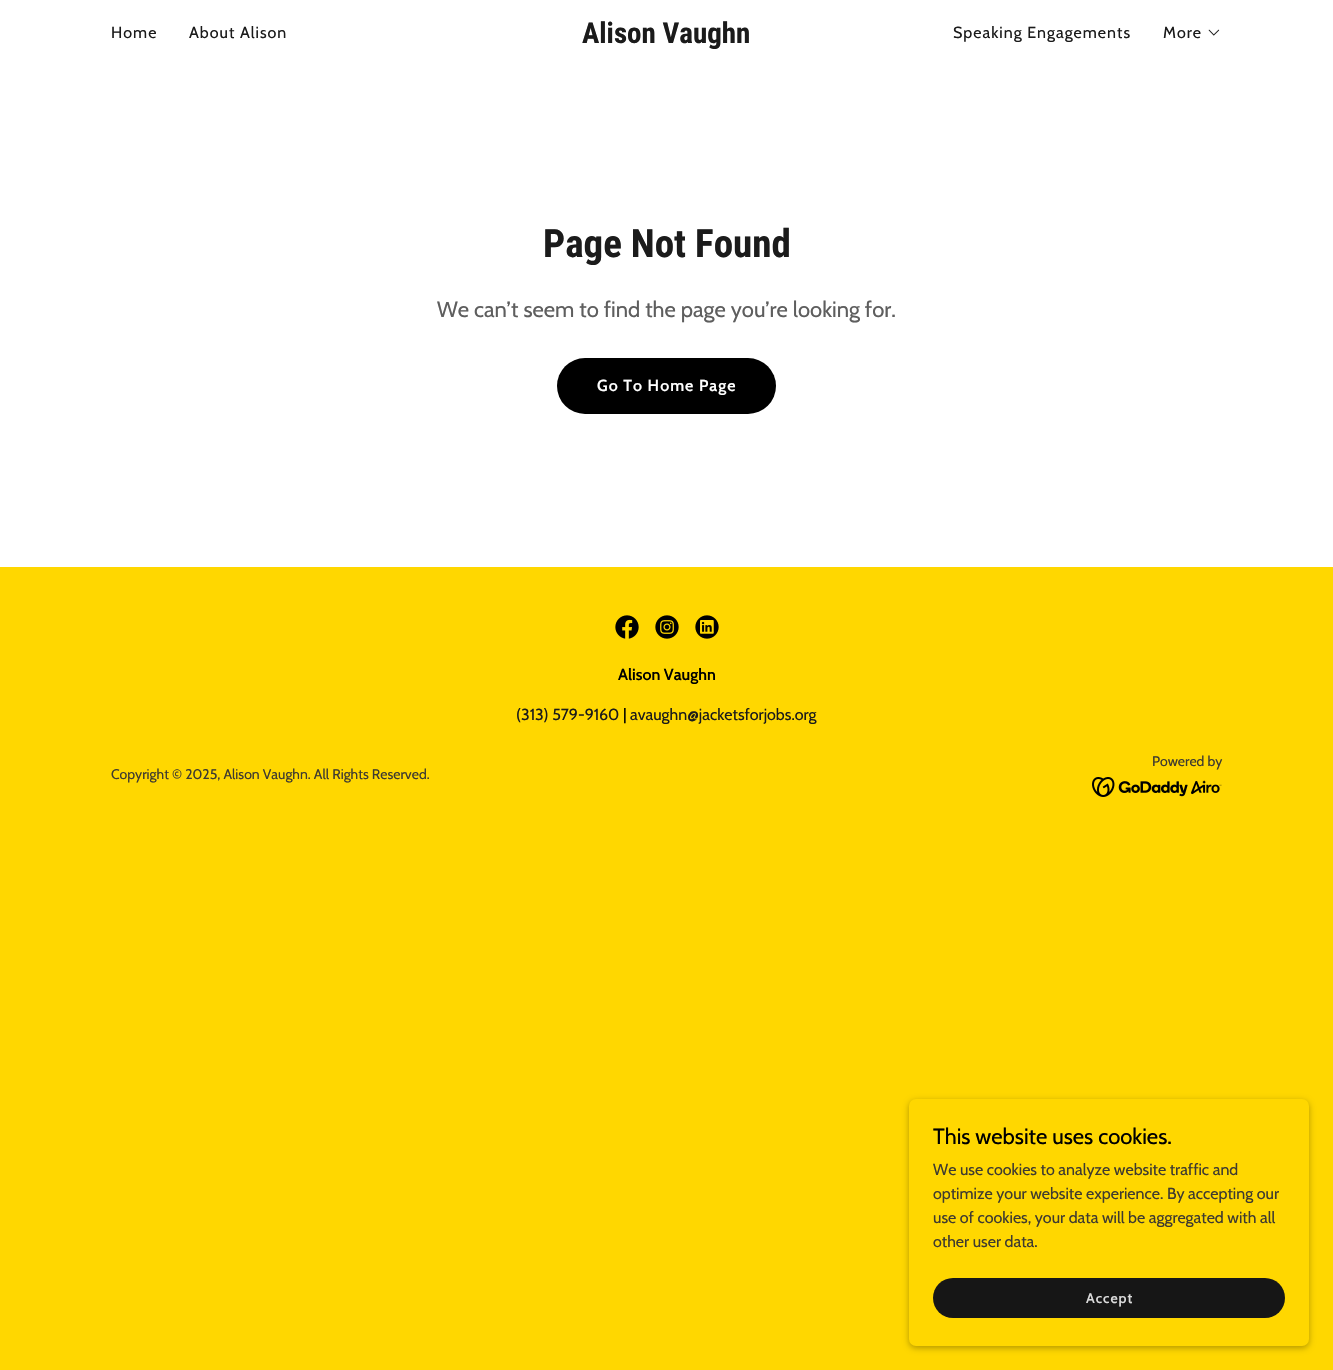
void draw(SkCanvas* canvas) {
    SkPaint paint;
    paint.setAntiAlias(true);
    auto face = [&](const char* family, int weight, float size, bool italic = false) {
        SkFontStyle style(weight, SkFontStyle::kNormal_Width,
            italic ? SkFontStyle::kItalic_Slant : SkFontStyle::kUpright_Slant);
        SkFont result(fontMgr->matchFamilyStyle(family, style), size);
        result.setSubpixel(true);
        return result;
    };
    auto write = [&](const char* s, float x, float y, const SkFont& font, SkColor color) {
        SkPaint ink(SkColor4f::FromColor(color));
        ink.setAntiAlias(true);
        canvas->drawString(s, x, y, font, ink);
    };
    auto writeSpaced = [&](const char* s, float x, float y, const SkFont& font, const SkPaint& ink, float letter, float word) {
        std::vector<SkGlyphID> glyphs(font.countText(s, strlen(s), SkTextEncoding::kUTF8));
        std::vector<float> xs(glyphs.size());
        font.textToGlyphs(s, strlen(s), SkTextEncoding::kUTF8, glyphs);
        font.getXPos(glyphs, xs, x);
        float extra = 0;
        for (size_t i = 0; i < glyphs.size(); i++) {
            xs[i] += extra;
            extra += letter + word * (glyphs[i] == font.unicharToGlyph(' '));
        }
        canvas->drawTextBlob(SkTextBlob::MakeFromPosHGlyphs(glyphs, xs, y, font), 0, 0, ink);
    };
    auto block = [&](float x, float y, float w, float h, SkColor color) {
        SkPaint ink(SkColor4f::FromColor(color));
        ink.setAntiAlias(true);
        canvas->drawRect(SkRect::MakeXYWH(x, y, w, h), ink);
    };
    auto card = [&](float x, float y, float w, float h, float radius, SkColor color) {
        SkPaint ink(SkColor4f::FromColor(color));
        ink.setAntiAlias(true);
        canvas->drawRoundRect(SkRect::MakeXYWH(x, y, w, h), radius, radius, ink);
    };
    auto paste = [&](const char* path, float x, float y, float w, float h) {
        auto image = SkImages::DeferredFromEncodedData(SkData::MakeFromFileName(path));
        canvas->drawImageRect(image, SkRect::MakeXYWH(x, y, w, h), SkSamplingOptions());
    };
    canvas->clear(SkColorSetRGB(255, 215, 0));
    block(0, 0, 1333, 567, SK_ColorWHITE);
    auto kFont1 = face("Cabin", 400, 16);
    paint.setColor(SkColorSetRGB(27, 27, 27));
    writeSpaced("Home", 111, 38, kFont1, paint, 1, 0);
    writeSpaced("About Alison", 189, 38, kFont1, paint, 1, 0);
    auto kFont2 = face("Roboto Condensed", 700, 29);
    write("Alison Vaughn", 582, 43, kFont2, SkColorSetRGB(27, 27, 27));
    writeSpaced("Speaking Engagements", 953, 38, kFont1, paint, 1, 0);
    writeSpaced("More", 1163, 38, kFont1, paint, 1, 0);
    paste("pic1.png", 1208, 29, 12, 7);
    auto kFont3 = face("Roboto Condensed", 700, 39);
    write("Page Not Found", 543, 257, kFont3, SkColorSetRGB(27, 27, 27));
    auto kFont4 = face("Cabin", 400, 22);
    write("We can’t seem to find the page you’re looking for.", 437, 317, kFont4, SkColorSetRGB(94, 94, 94));
    card(557, 358, 219, 56, 28, SK_ColorBLACK);
    auto kFont5 = face("Cabin", 600, 16);
    paint.setColor(SK_ColorWHITE);
    writeSpaced("Go To Home Page", 597, 391, kFont5, paint, 1, 0);
    paste("pic2.png", 615, 615, 24, 24);
    paste("pic3.png", 655, 615, 24, 24);
    paste("pic4.png", 695, 615, 24, 24);
    write("Alison Vaughn", 618, 680, kFont5, SK_ColorBLACK);
    write("(313) 579-9160", 516, 720, kFont1, SkColorSetRGB(27, 27, 27));
    write("|", 623, 720, kFont1, SK_ColorBLACK);
    write("avaughn@jacketsforjobs.org", 630, 720, kFont1, SkColorSetRGB(27, 27, 27));
    auto kFont6 = face("Cabin", 400, 14);
    write("Powered by", 1152, 766, kFont6, SkColorSetRGB(63, 59, 48));
    paste("pic5.png", 1092, 777, 130, 20);
    write("Copyright © 2025, Alison Vaughn. All Rights Reserved.", 111, 779, kFont6, SkColorSetRGB(63, 59, 48));
    paint.setColor(SkColorSetARGB(77, 0, 0, 0));
    paint.setMaskFilter(SkMaskFilter::MakeBlur(kNormal_SkBlurStyle, 3));
    canvas->drawRoundRect(SkRect::MakeXYWH(909, 1101, 400, 247), 7, 7, paint);
    paint.setMaskFilter(nullptr);
    card(909, 1099, 400, 247, 7, SkColorSetRGB(255, 215, 0));
    write("This website uses cookies.", 933, 1144, kFont4, SK_ColorBLACK);
    write("We use cookies to analyze website traffic and", 933, 1175, kFont1, SkColorSetRGB(63, 59, 48));
    write("optimize your website experience. By accepting our", 933, 1199, kFont1, SkColorSetRGB(63, 59, 48));
    write("use of cookies, your data will be aggregated with all", 933, 1223, kFont1, SkColorSetRGB(63, 59, 48));
    write("other user data.", 933, 1247, kFont1, SkColorSetRGB(63, 59, 48));
    card(933, 1278, 352, 40, 20, SkColorSetRGB(22, 22, 22));
    auto kFont7 = face("Cabin", 600, 14);
    paint.setColor(SkColorSetRGB(219, 219, 219));
    writeSpaced("Accept", 1086, 1303, kFont7, paint, 1, 0);
}
